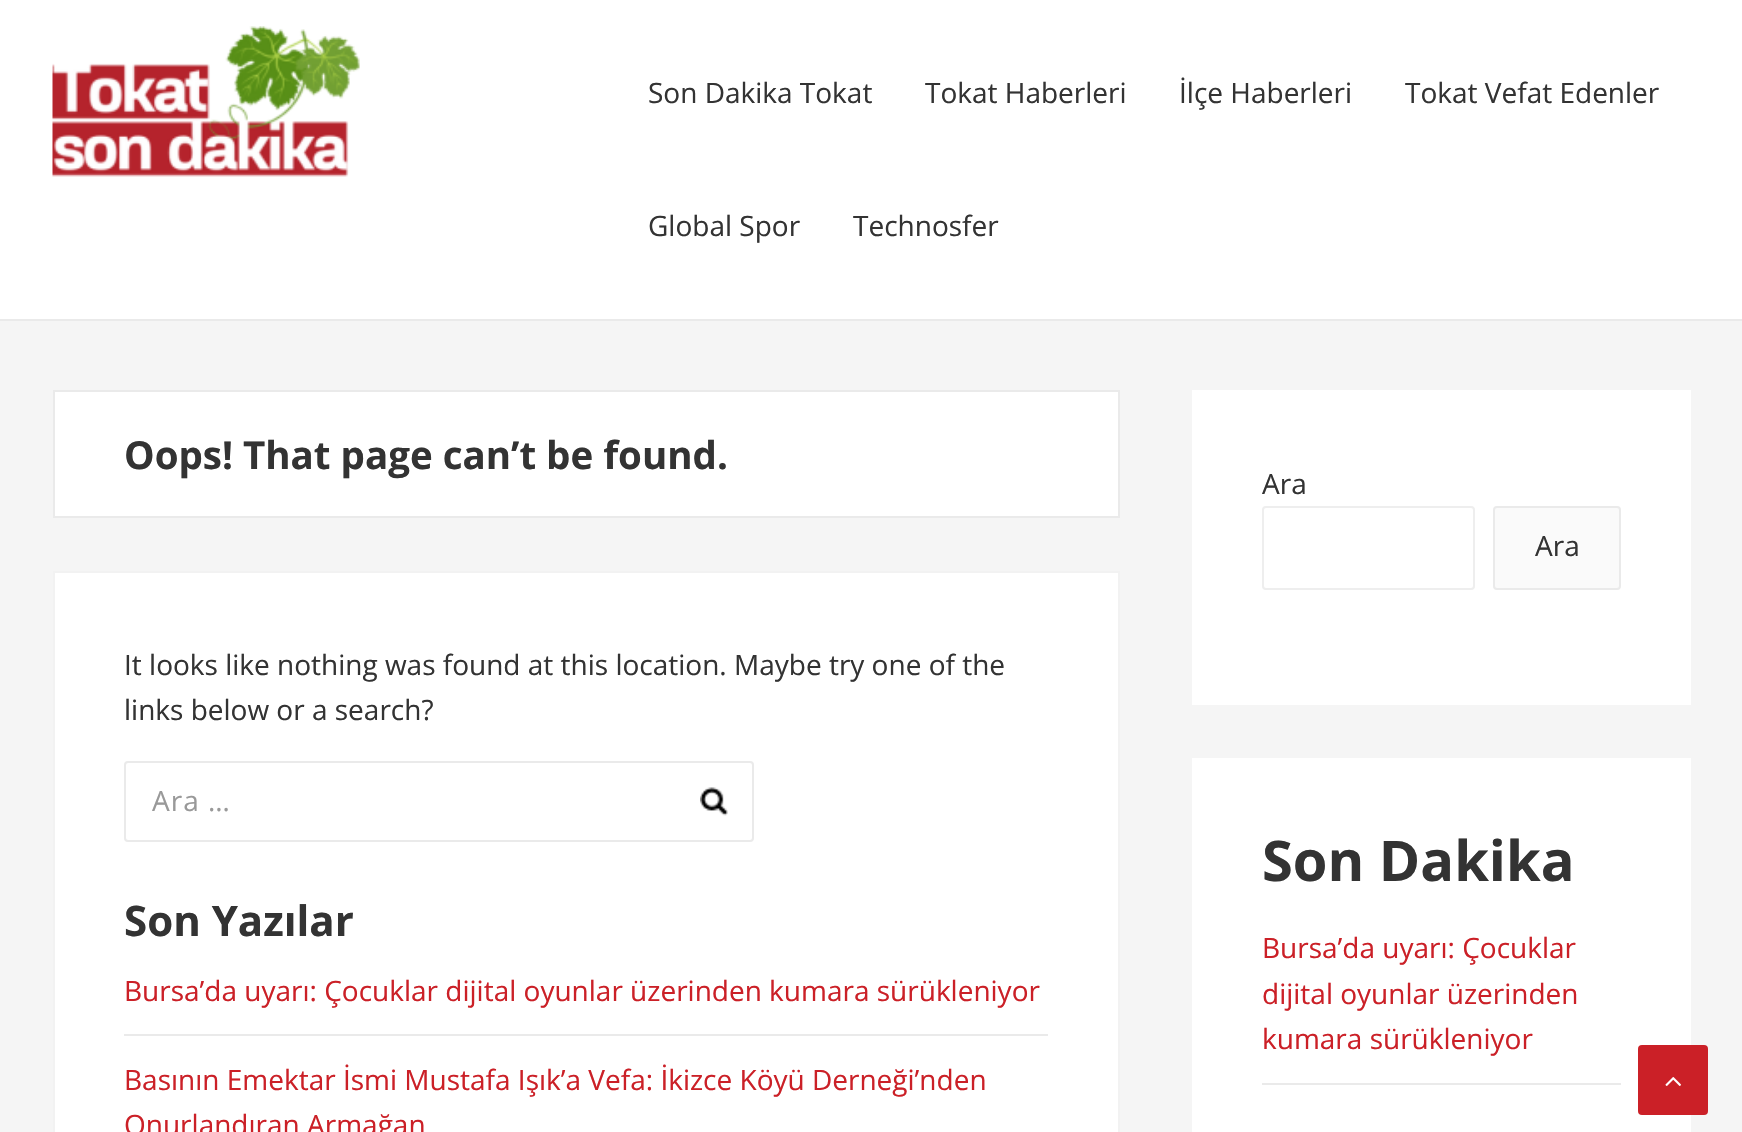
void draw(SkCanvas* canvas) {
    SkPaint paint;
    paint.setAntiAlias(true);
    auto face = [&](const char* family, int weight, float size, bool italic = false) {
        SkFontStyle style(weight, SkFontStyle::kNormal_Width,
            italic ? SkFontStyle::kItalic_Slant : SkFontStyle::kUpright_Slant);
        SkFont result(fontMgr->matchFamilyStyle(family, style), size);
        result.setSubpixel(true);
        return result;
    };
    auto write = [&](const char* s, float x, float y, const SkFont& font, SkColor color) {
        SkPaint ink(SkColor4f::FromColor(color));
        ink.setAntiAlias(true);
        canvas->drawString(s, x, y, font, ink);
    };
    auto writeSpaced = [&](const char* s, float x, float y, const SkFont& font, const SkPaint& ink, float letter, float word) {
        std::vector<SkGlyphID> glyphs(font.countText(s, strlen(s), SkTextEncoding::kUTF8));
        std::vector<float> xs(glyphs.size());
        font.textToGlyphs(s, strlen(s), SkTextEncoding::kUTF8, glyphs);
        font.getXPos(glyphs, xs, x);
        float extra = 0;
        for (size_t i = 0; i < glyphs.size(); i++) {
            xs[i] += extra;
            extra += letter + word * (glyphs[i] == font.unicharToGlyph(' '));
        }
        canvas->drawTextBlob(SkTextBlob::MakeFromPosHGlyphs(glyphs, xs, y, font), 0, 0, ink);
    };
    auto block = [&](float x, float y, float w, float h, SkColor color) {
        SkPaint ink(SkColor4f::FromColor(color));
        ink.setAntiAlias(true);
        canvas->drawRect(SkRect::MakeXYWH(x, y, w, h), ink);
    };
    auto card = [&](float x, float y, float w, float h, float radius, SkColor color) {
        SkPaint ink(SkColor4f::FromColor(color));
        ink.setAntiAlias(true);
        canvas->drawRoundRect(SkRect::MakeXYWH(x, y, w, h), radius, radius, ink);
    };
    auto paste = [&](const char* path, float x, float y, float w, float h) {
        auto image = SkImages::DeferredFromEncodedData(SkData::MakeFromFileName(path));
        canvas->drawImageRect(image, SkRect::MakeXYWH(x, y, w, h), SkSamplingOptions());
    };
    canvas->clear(SkColorSetRGB(245, 245, 245));
    block(0, 0, 1742, 319, SK_ColorWHITE);
    paste("pic1.png", 52, 26, 308, 151);
    auto kFont1 = face("Open Sans", 400, 28);
    write("Son Dakika Tokat", 648, 103, kFont1, SkColorSetRGB(51, 51, 51));
    write("Tokat Haberleri", 925, 103, kFont1, SkColorSetRGB(51, 51, 51));
    write("İlçe Haberleri", 1179, 103, kFont1, SkColorSetRGB(51, 51, 51));
    write("Tokat Vefat Edenler", 1405, 103, kFont1, SkColorSetRGB(51, 51, 51));
    write("Global Spor", 648, 236, kFont1, SkColorSetRGB(51, 51, 51));
    write("Technosfer", 853, 236, kFont1, SkColorSetRGB(51, 51, 51));
    block(0, 319, 1742, 2, SkColorSetRGB(234, 234, 234));
    paint.setColor(SK_ColorWHITE);
    canvas->drawRect(SkRect::MakeXYWH(54, 391, 1065, 126), paint);
    paint.setStyle(SkPaint::kStroke_Style);
    paint.setStrokeWidth(2);
    paint.setColor(SkColorSetRGB(234, 234, 234));
    canvas->drawRect(SkRect::MakeXYWH(54, 391, 1065, 126), paint);
    auto kFont2 = face("Open Sans", 700, 38.5f);
    write("Oops! That page can’t be found.", 124, 469, kFont2, SkColorSetRGB(51, 51, 51));
    paint.setStyle(SkPaint::kFill_Style);
    paint.setColor(SK_ColorWHITE);
    canvas->drawRect(SkRect::MakeXYWH(54, 572, 1065, 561), paint);
    paint.setStyle(SkPaint::kStroke_Style);
    paint.setColor(SkColorSetRGB(242, 242, 242));
    canvas->drawRect(SkRect::MakeXYWH(54, 572, 1065, 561), paint);
    write("It looks like nothing was found at this location. Maybe try one of the", 124, 675, kFont1, SkColorSetRGB(51, 51, 51));
    write("links below or a search?", 124, 720, kFont1, SkColorSetRGB(51, 51, 51));
    paint.setColor(SkColorSetRGB(234, 234, 234));
    canvas->drawRoundRect(SkRect::MakeXYWH(125, 762, 628, 79), 3, 3, paint);
    paint.setStyle(SkPaint::kFill_Style);
    paint.setColor(SkColorSetRGB(153, 153, 153));
    writeSpaced("Ara …", 152, 811, kFont1, paint, 1, 0);
    paste("pic2.png", 700, 787, 28, 29);
    auto kFont3 = face("Open Sans", 700, 42);
    write("Son Yazılar", 124, 936, kFont3, SkColorSetRGB(51, 51, 51));
    block(124, 1034, 924, 2, SkColorSetRGB(234, 234, 234));
    write("Bursa’da uyarı: Çocuklar dijital oyunlar üzerinden kumara sürükleniyor", 124, 1001, kFont1, SkColorSetRGB(203, 32, 39));
    write("Basının Emektar İsmi Mustafa Işık’a Vefa: İkizce Köyü Derneği’nden", 124, 1090, kFont1, SkColorSetRGB(203, 32, 39));
    write("Onurlandıran Armağan", 124, 1135, kFont1, SkColorSetRGB(203, 32, 39));
    block(1192, 390, 499, 315, SK_ColorWHITE);
    write("Ara", 1262, 494, kFont1, SkColorSetRGB(51, 51, 51));
    paint.setStyle(SkPaint::kStroke_Style);
    paint.setColor(SkColorSetRGB(238, 238, 238));
    canvas->drawRoundRect(SkRect::MakeXYWH(1263, 507, 211, 82), 3, 3, paint);
    paint.setStyle(SkPaint::kFill_Style);
    paint.setColor(SkColorSetRGB(250, 250, 250));
    canvas->drawRoundRect(SkRect::MakeXYWH(1494, 507, 126, 82), 3, 3, paint);
    paint.setStyle(SkPaint::kStroke_Style);
    paint.setColor(SkColorSetRGB(234, 234, 234));
    canvas->drawRoundRect(SkRect::MakeXYWH(1494, 507, 126, 82), 3, 3, paint);
    write("Ara", 1535, 556, kFont1, SkColorSetRGB(51, 51, 51));
    block(1192, 758, 499, 374, SK_ColorWHITE);
    auto kFont4 = face("Open Sans", 700, 56);
    write("Son Dakika", 1262, 881, kFont4, SkColorSetRGB(51, 51, 51));
    block(1262, 1083, 359, 2, SkColorSetRGB(234, 234, 234));
    write("Bursa’da uyarı: Çocuklar", 1262, 958, kFont1, SkColorSetRGB(203, 32, 39));
    write("dijital oyunlar üzerinden", 1262, 1004, kFont1, SkColorSetRGB(203, 32, 39));
    write("kumara sürükleniyor", 1262, 1049, kFont1, SkColorSetRGB(203, 32, 39));
    card(1638, 1045, 70, 70, 4, SkColorSetRGB(203, 32, 39));
    paste("pic3.png", 1665, 1077, 16, 9);
}
